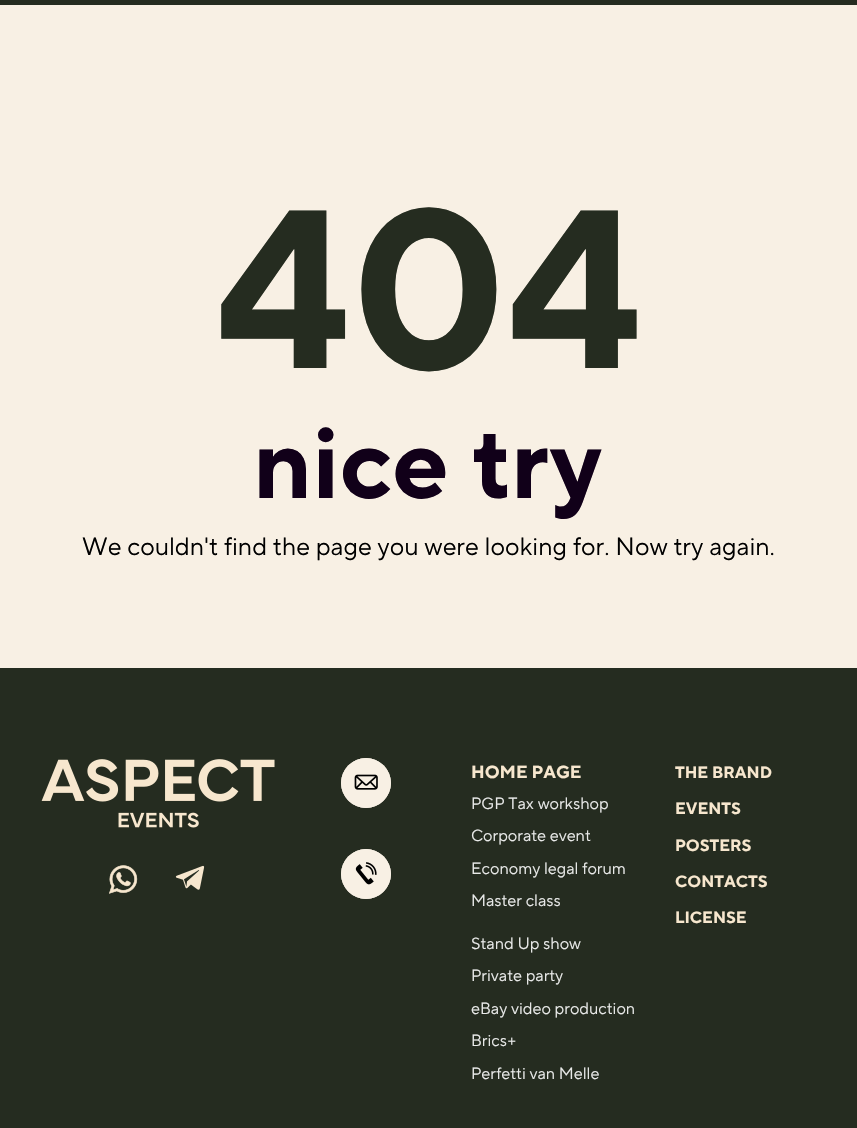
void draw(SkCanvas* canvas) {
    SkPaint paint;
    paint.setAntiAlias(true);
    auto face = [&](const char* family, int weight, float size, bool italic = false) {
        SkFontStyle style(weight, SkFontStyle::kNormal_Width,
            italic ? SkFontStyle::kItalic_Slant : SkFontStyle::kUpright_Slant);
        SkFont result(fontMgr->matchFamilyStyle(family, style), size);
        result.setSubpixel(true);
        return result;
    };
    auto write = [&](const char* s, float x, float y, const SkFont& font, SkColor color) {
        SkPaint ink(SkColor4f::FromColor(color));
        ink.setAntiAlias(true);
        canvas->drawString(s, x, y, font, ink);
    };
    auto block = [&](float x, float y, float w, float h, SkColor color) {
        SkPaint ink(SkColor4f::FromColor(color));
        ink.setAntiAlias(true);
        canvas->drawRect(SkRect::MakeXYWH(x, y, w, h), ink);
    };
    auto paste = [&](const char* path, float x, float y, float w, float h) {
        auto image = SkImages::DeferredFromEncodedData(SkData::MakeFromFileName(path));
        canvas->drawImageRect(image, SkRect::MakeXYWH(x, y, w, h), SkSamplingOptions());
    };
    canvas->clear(SkColorSetRGB(248, 240, 228));
    block(0, 0, 857, 5, SkColorSetRGB(37, 44, 32));
    auto kFont1 = face("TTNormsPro", 700, 225);
    write("404", 215, 368, kFont1, SkColorSetRGB(37, 44, 32));
    auto kFont2 = face("TTNormsPro", 700, 100);
    write("nice try", 253, 498, kFont2, SkColorSetRGB(17, 0, 25));
    auto kFont3 = face("TTNormsPro", 400, 25);
    write("We couldn't find the page you were looking for. Now try again.", 82, 555, kFont3, SK_ColorBLACK);
    block(0, 668, 857, 460, SkColorSetRGB(37, 44, 32));
    paint.setColor(SkColorSetRGB(248, 240, 228));
    canvas->drawCircle(366, 783, 25, paint);
    paste("pic1.png", 41, 759, 234, 69);
    paste("pic2.png", 354, 774, 24, 16);
    paint.setStyle(SkPaint::kStroke_Style);
    paint.setStrokeWidth(1);
    canvas->drawCircle(366, 783, 24.5f, paint);
    auto kFont4 = face("TTNormsPro", 700, 17.5f);
    write("HOME PAGE", 471, 778, kFont4, SkColorSetRGB(247, 231, 206));
    auto kFont5 = face("TTNormsPro", 700, 16.25f);
    write("THE BRAND", 675, 778, kFont5, SkColorSetRGB(247, 231, 206));
    auto kFont6 = face("TTNormsPro", 400, 16.25f);
    write("PGP Tax workshop", 471, 809, kFont6, SkColorSetRGB(233, 234, 233));
    write("Corporate event", 471, 841, kFont6, SkColorSetRGB(233, 234, 233));
    write("Economy legal forum", 471, 874, kFont6, SkColorSetRGB(233, 234, 233));
    write("Master class", 471, 906, kFont6, SkColorSetRGB(233, 234, 233));
    write("EVENTS", 675, 814, kFont5, SkColorSetRGB(247, 231, 206));
    write("POSTERS", 675, 851, kFont5, SkColorSetRGB(247, 231, 206));
    paint.setStyle(SkPaint::kFill_Style);
    canvas->drawCircle(366, 874, 25, paint);
    paste("pic5.png", 355, 862, 22, 23);
    paint.setStyle(SkPaint::kStroke_Style);
    canvas->drawCircle(366, 874, 24.5f, paint);
    paste("pic3.png", 109, 865, 29, 29);
    paste("pic4.png", 175, 865, 30, 25);
    write("CONTACTS", 675, 887, kFont5, SkColorSetRGB(247, 231, 206));
    write("LICENSE", 675, 923, kFont5, SkColorSetRGB(247, 231, 206));
    write("Stand Up show", 471, 949, kFont6, SkColorSetRGB(233, 234, 233));
    write("Private party", 471, 981, kFont6, SkColorSetRGB(233, 234, 233));
    write("eBay video production", 471, 1014, kFont6, SkColorSetRGB(233, 234, 233));
    write("Brics+", 471, 1046, kFont6, SkColorSetRGB(233, 234, 233));
    write("Perfetti van Melle", 471, 1079, kFont6, SkColorSetRGB(233, 234, 233));
}
